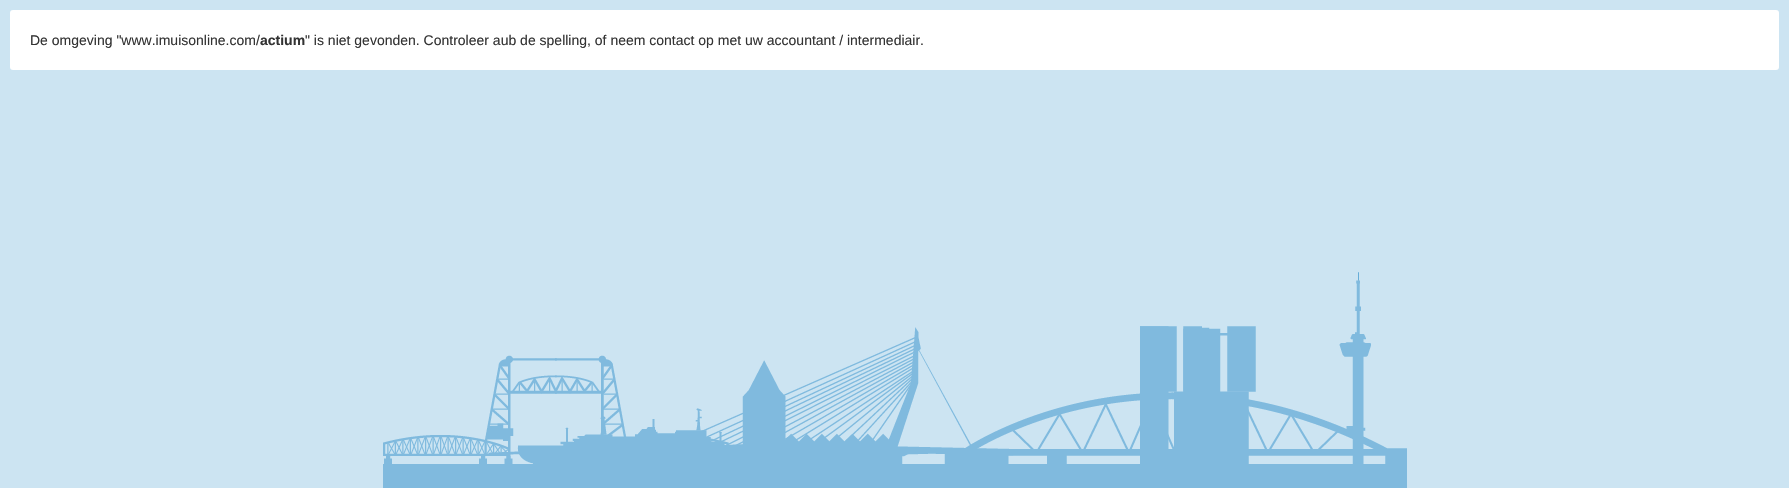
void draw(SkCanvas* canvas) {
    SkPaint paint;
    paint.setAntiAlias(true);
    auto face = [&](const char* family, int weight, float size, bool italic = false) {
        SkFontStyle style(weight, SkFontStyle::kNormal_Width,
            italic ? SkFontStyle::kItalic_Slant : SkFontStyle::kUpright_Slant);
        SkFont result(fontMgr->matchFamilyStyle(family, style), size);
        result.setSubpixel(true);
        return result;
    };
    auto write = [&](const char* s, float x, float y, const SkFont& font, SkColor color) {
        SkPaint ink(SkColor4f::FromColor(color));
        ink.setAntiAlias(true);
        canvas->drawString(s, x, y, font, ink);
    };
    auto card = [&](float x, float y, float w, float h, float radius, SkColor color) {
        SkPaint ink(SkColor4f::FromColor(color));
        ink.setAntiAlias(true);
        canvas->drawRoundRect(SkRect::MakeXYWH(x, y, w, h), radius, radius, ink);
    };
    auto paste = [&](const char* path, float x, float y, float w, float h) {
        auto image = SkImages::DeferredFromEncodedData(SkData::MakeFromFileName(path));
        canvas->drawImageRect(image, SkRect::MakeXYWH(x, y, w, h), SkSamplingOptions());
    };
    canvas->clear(SkColorSetRGB(204, 228, 242));
    paste("pic1.png", 383, 272, 1024, 216);
    card(10, 10, 1769, 60, 3, SK_ColorWHITE);
    auto kFont1 = face("Liberation Sans", 400, 14);
    write("De omgeving \"www.imuisonline.com/", 30, 45, kFont1, SkColorSetRGB(51, 51, 51));
    auto kFont2 = face("Liberation Sans", 700, 14);
    write("actium", 260, 45, kFont2, SkColorSetRGB(51, 51, 51));
    write("\" is niet gevonden. Controleer aub de spelling, of neem contact op met uw accountant / intermediair.", 305, 45, kFont1, SkColorSetRGB(51, 51, 51));
}
